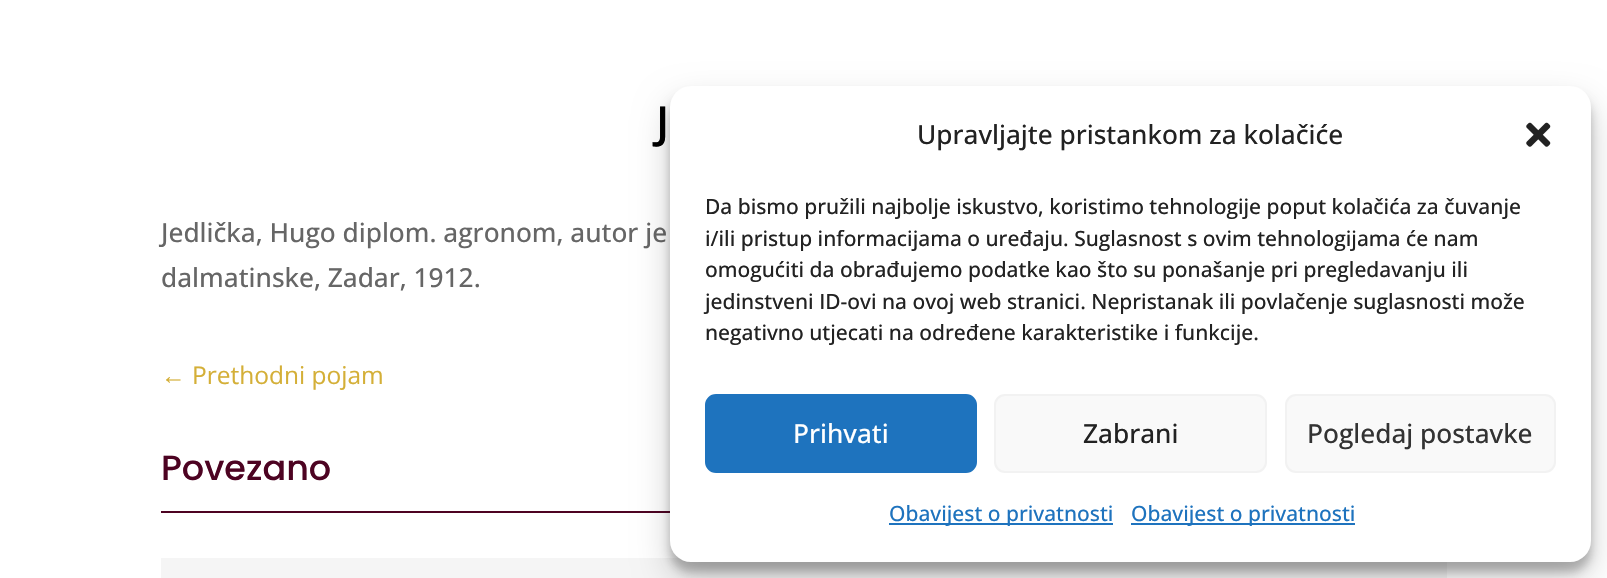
void draw(SkCanvas* canvas) {
    SkPaint paint;
    paint.setAntiAlias(true);
    auto face = [&](const char* family, int weight, float size, bool italic = false) {
        SkFontStyle style(weight, SkFontStyle::kNormal_Width,
            italic ? SkFontStyle::kItalic_Slant : SkFontStyle::kUpright_Slant);
        SkFont result(fontMgr->matchFamilyStyle(family, style), size);
        result.setSubpixel(true);
        return result;
    };
    auto write = [&](const char* s, float x, float y, const SkFont& font, SkColor color) {
        SkPaint ink(SkColor4f::FromColor(color));
        ink.setAntiAlias(true);
        canvas->drawString(s, x, y, font, ink);
    };
    auto block = [&](float x, float y, float w, float h, SkColor color) {
        SkPaint ink(SkColor4f::FromColor(color));
        ink.setAntiAlias(true);
        canvas->drawRect(SkRect::MakeXYWH(x, y, w, h), ink);
    };
    auto card = [&](float x, float y, float w, float h, float radius, SkColor color) {
        SkPaint ink(SkColor4f::FromColor(color));
        ink.setAntiAlias(true);
        canvas->drawRoundRect(SkRect::MakeXYWH(x, y, w, h), radius, radius, ink);
    };
    auto paste = [&](const char* path, float x, float y, float w, float h) {
        auto image = SkImages::DeferredFromEncodedData(SkData::MakeFromFileName(path));
        canvas->drawImageRect(image, SkRect::MakeXYWH(x, y, w, h), SkSamplingOptions());
    };
    canvas->clear(SK_ColorWHITE);
    auto kFont1 = face("Open Sans", 600, 44);
    write("J", 656, 138, kFont1, SK_ColorBLACK);
    auto kFont2 = face("Open Sans", 500, 26.25f);
    write("Jedlička, Hugo diplom. agronom, autor je", 161, 242, kFont2, SkColorSetRGB(102, 102, 102));
    write("dalmatinske, Zadar, 1912.", 161, 287, kFont2, SkColorSetRGB(102, 102, 102));
    auto kFont3 = face("Liberation Sans", 400, 24.5f);
    write("←", 161, 384, kFont3, SkColorSetRGB(212, 175, 55));
    auto kFont4 = face("Open Sans", 400, 24.5f);
    write("Prethodni pojam", 192, 384, kFont4, SkColorSetRGB(212, 175, 55));
    auto kFont5 = face("Poppins", 500, 35);
    write("Povezano", 161, 480, kFont5, SkColorSetRGB(77, 3, 34));
    block(161, 511, 509, 2, SkColorSetRGB(77, 3, 34));
    block(161, 558, 1286, 20, SkColorSetRGB(245, 245, 245));
    paint.setColor(SkColorSetARGB(59, 0, 0, 0));
    paint.setMaskFilter(SkMaskFilter::MakeBlur(kNormal_SkBlurStyle, 5));
    canvas->drawRoundRect(SkRect::MakeXYWH(670, 96, 921, 476), 21, 21, paint);
    paint.setMaskFilter(nullptr);
    paint.setColor(SkColorSetARGB(48, 0, 0, 0));
    paint.setMaskFilter(SkMaskFilter::MakeBlur(kNormal_SkBlurStyle, 17.5f));
    canvas->drawRoundRect(SkRect::MakeXYWH(670, 103, 921, 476), 21, 21, paint);
    paint.setMaskFilter(nullptr);
    card(670, 86, 921, 476, 21, SK_ColorWHITE);
    write("Upravljajte pristankom za kolačiće", 917, 144, kFont2, SkColorSetRGB(34, 34, 34));
    paste("pic1.png", 1526, 122, 25, 25);
    auto kFont6 = face("Open Sans", 500, 21);
    write("Da bismo pružili najbolje iskustvo, koristimo tehnologije poput kolačića za čuvanje", 705, 214, kFont6, SkColorSetRGB(34, 34, 34));
    write("i/ili pristup informacijama o uređaju. Suglasnost s ovim tehnologijama će nam", 705, 246, kFont6, SkColorSetRGB(34, 34, 34));
    write("omogućiti da obrađujemo podatke kao što su ponašanje pri pregledavanju ili", 705, 277, kFont6, SkColorSetRGB(34, 34, 34));
    write("jedinstveni ID-ovi na ovoj web stranici. Nepristanak ili povlačenje suglasnosti može", 705, 309, kFont6, SkColorSetRGB(34, 34, 34));
    write("negativno utjecati na određene karakteristike i funkcije.", 705, 340, kFont6, SkColorSetRGB(34, 34, 34));
    paint.setColor(SkColorSetRGB(30, 115, 190));
    canvas->drawRoundRect(SkRect::MakeXYWH(706, 395, 270, 77), 10, 10, paint);
    paint.setStyle(SkPaint::kStroke_Style);
    paint.setStrokeWidth(2);
    canvas->drawRoundRect(SkRect::MakeXYWH(706, 395, 270, 77), 10, 10, paint);
    write("Prihvati", 793, 443, kFont2, SK_ColorWHITE);
    paint.setStyle(SkPaint::kFill_Style);
    paint.setColor(SkColorSetRGB(249, 249, 249));
    canvas->drawRoundRect(SkRect::MakeXYWH(995, 395, 271, 77), 10, 10, paint);
    paint.setStyle(SkPaint::kStroke_Style);
    paint.setColor(SkColorSetRGB(242, 242, 242));
    canvas->drawRoundRect(SkRect::MakeXYWH(995, 395, 271, 77), 10, 10, paint);
    write("Zabrani", 1083, 443, kFont2, SkColorSetRGB(34, 34, 34));
    paint.setStyle(SkPaint::kFill_Style);
    paint.setColor(SkColorSetRGB(249, 249, 249));
    canvas->drawRoundRect(SkRect::MakeXYWH(1286, 395, 269, 77), 10, 10, paint);
    paint.setStyle(SkPaint::kStroke_Style);
    paint.setColor(SkColorSetRGB(242, 242, 242));
    canvas->drawRoundRect(SkRect::MakeXYWH(1286, 395, 269, 77), 10, 10, paint);
    write("Pogledaj postavke", 1307, 443, kFont2, SkColorSetRGB(51, 51, 51));
    block(889, 523, 224, 2, SkColorSetRGB(30, 115, 190));
    write("Obavijest o privatnosti", 889, 521, kFont6, SkColorSetRGB(30, 115, 190));
    block(1131, 523, 224, 2, SkColorSetRGB(30, 115, 190));
    write("Obavijest o privatnosti", 1131, 521, kFont6, SkColorSetRGB(30, 115, 190));
}
